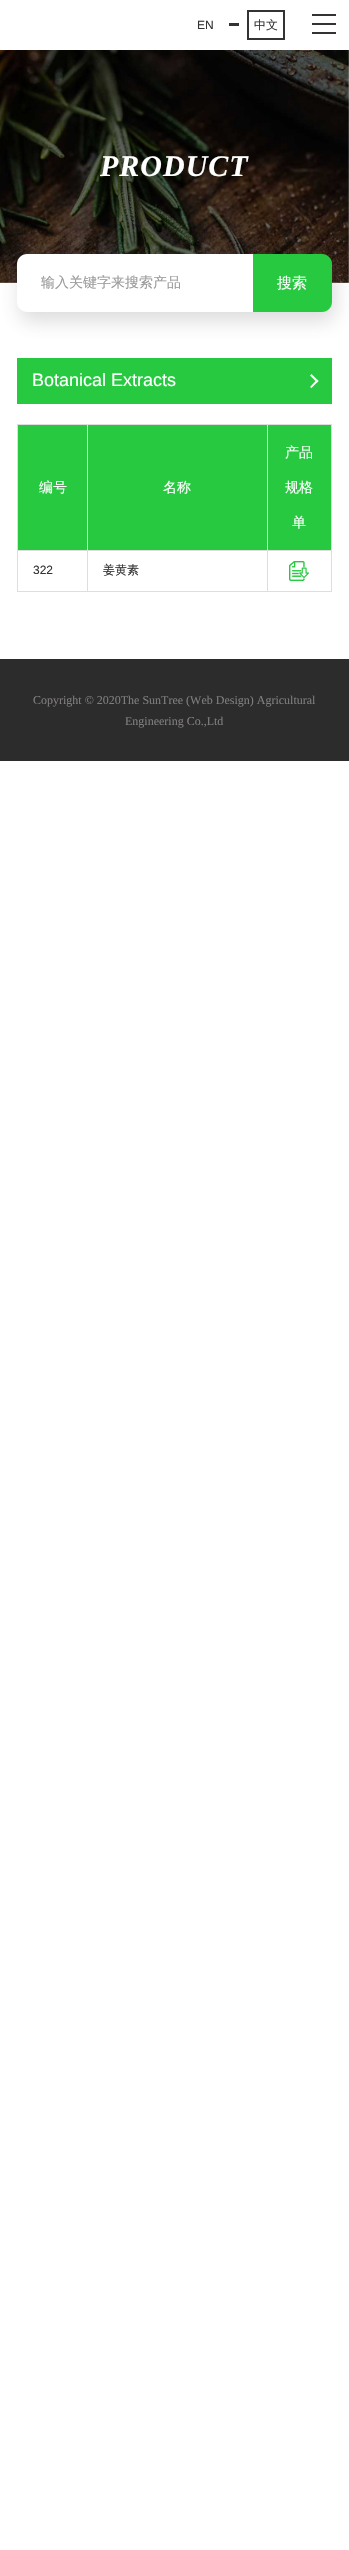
void draw(SkCanvas* canvas) {
    SkPaint paint;
    paint.setAntiAlias(true);
    auto face = [&](const char* family, int weight, float size, bool italic = false) {
        SkFontStyle style(weight, SkFontStyle::kNormal_Width,
            italic ? SkFontStyle::kItalic_Slant : SkFontStyle::kUpright_Slant);
        SkFont result(fontMgr->matchFamilyStyle(family, style), size);
        result.setSubpixel(true);
        return result;
    };
    auto write = [&](const char* s, float x, float y, const SkFont& font, SkColor color) {
        SkPaint ink(SkColor4f::FromColor(color));
        ink.setAntiAlias(true);
        canvas->drawString(s, x, y, font, ink);
    };
    auto writeSpaced = [&](const char* s, float x, float y, const SkFont& font, const SkPaint& ink, float letter, float word) {
        std::vector<SkGlyphID> glyphs(font.countText(s, strlen(s), SkTextEncoding::kUTF8));
        std::vector<float> xs(glyphs.size());
        font.textToGlyphs(s, strlen(s), SkTextEncoding::kUTF8, glyphs);
        font.getXPos(glyphs, xs, x);
        float extra = 0;
        for (size_t i = 0; i < glyphs.size(); i++) {
            xs[i] += extra;
            extra += letter + word * (glyphs[i] == font.unicharToGlyph(' '));
        }
        canvas->drawTextBlob(SkTextBlob::MakeFromPosHGlyphs(glyphs, xs, y, font), 0, 0, ink);
    };
    auto block = [&](float x, float y, float w, float h, SkColor color) {
        SkPaint ink(SkColor4f::FromColor(color));
        ink.setAntiAlias(true);
        canvas->drawRect(SkRect::MakeXYWH(x, y, w, h), ink);
    };
    auto paste = [&](const char* path, float x, float y, float w, float h) {
        auto image = SkImages::DeferredFromEncodedData(SkData::MakeFromFileName(path));
        canvas->drawImageRect(image, SkRect::MakeXYWH(x, y, w, h), SkSamplingOptions());
    };
    canvas->clear(SK_ColorWHITE);
    auto kFont1 = face("Liberation Sans", 400, 12);
    write("EN", 197, 29, kFont1, SkColorSetRGB(51, 51, 51));
    block(229, 23, 10, 3, SkColorSetRGB(51, 51, 51));
    paint.setStyle(SkPaint::kStroke_Style);
    paint.setStrokeWidth(2);
    paint.setColor(SkColorSetRGB(51, 51, 51));
    canvas->drawRect(SkRect::MakeXYWH(248, 11, 36, 28), paint);
    auto kFont2 = face("WenQuanYi Zen Hei", 500, 12);
    write("中文", 254, 29, kFont2, SkColorSetRGB(51, 51, 51));
    block(312, 14, 24, 2, SkColorSetRGB(51, 51, 51));
    block(312, 23, 24, 2, SkColorSetRGB(51, 51, 51));
    block(312, 32, 24, 2, SkColorSetRGB(51, 51, 51));
    paste("pic1.png", 0, 50, 349, 233);
    auto kFont3 = face("Liberation Serif", 700, 30, true);
    paint.setStyle(SkPaint::kFill_Style);
    paint.setColor(SK_ColorWHITE);
    writeSpaced("PRODUCT", 100, 176, kFont3, paint, 1, 0);
    paint.setColor(SkColorSetARGB(51, 77, 77, 77));
    paint.setMaskFilter(SkMaskFilter::MakeBlur(kNormal_SkBlurStyle, 10));
    canvas->drawRoundRect(SkRect::MakeXYWH(20, 263, 315, 58), 10, 10, paint);
    paint.setMaskFilter(nullptr);
    paint.setColor(SK_ColorWHITE);
    canvas->drawPath(SkPathBuilder().moveTo(27, 254).lineTo(253, 254).lineTo(253, 312).lineTo(27, 312).cubicTo(21.5f, 312, 17, 307.5f, 17, 302).lineTo(17, 264).cubicTo(17, 258.5f, 21.5f, 254, 27, 254).close().detach(), paint);
    auto kFont4 = face("WenQuanYi Zen Hei", 500, 14);
    write("输入关键字来搜索产品", 41, 287, kFont4, SkColorSetRGB(153, 153, 153));
    paint.setColor(SkColorSetRGB(39, 201, 64));
    canvas->drawPath(SkPathBuilder().moveTo(253, 254).lineTo(322, 254).cubicTo(327.5f, 254, 332, 258.5f, 332, 264).lineTo(332, 302).cubicTo(332, 307.5f, 327.5f, 312, 322, 312).lineTo(253, 312).close().detach(), paint);
    auto kFont5 = face("WenQuanYi Zen Hei", 500, 15);
    write("搜索", 277, 288, kFont5, SK_ColorWHITE);
    block(17, 358, 315, 46, SkColorSetRGB(39, 201, 64));
    auto kFont6 = face("Liberation Sans", 400, 18);
    write("Botanical Extracts", 32, 386, kFont6, SK_ColorWHITE);
    paint.setColor(SK_ColorWHITE);
    canvas->drawPath(SkPathBuilder().moveTo(311.5f, 374).lineTo(318.5f, 381).lineTo(317, 382.5f).lineTo(310, 375.5f).close().detach(), paint);
    canvas->drawPath(SkPathBuilder().moveTo(317, 379.5f).lineTo(318.5f, 381).lineTo(311.5f, 388).lineTo(310, 387).close().detach(), paint);
    block(18, 425, 69, 125, SkColorSetRGB(39, 201, 64));
    block(267, 424, 65, 1, SkColorSetRGB(221, 221, 221));
    block(267, 550, 65, 1, SkColorSetRGB(221, 221, 221));
    block(331, 550, 1, 42, SkColorSetRGB(222, 222, 222));
    block(267, 591, 65, 1, SkColorSetRGB(222, 222, 222));
    block(267, 550, 1, 42, SkColorSetRGB(222, 222, 222));
    block(87, 550, 181, 1, SkColorSetRGB(221, 221, 221));
    block(267, 424, 1, 127, SkColorSetRGB(222, 222, 222));
    block(87, 424, 181, 1, SkColorSetRGB(221, 221, 221));
    block(87, 591, 181, 1, SkColorSetRGB(222, 222, 222));
    block(87, 550, 1, 42, SkColorSetRGB(222, 222, 222));
    block(17, 550, 71, 1, SkColorSetRGB(221, 221, 221));
    block(87, 424, 1, 127, SkColorSetRGB(222, 222, 222));
    block(17, 424, 71, 1, SkColorSetRGB(221, 221, 221));
    block(17, 591, 71, 1, SkColorSetRGB(222, 222, 222));
    block(17, 550, 1, 42, SkColorSetRGB(222, 222, 222));
    block(17, 424, 1, 127, SkColorSetRGB(222, 222, 222));
    write("编号", 39, 492, kFont4, SK_ColorWHITE);
    block(88, 425, 179, 125, SkColorSetRGB(39, 201, 64));
    write("名称", 163, 492, kFont4, SK_ColorWHITE);
    block(268, 425, 63, 125, SkColorSetRGB(39, 201, 64));
    block(331, 424, 1, 127, SkColorSetRGB(222, 222, 222));
    write("产品", 285, 457, kFont4, SK_ColorWHITE);
    write("规格", 285, 492, kFont4, SK_ColorWHITE);
    write("单", 292, 527, kFont4, SK_ColorWHITE);
    write("322", 33, 574, kFont1, SkColorSetRGB(51, 51, 51));
    write("姜黄素", 103, 574, kFont2, SkColorSetRGB(51, 51, 51));
    paste("pic2.png", 289, 561, 20, 20);
    block(0, 659, 349, 102, SkColorSetRGB(44, 44, 44));
    auto kFont7 = face("Liberation Serif", 400, 12);
    write("Copyright © 2020The SunTree (Web Design) Agricultural", 33, 704, kFont7, SkColorSetRGB(128, 125, 125));
    write("Engineering Co.,Ltd", 125, 725, kFont7, SkColorSetRGB(128, 125, 125));
}
